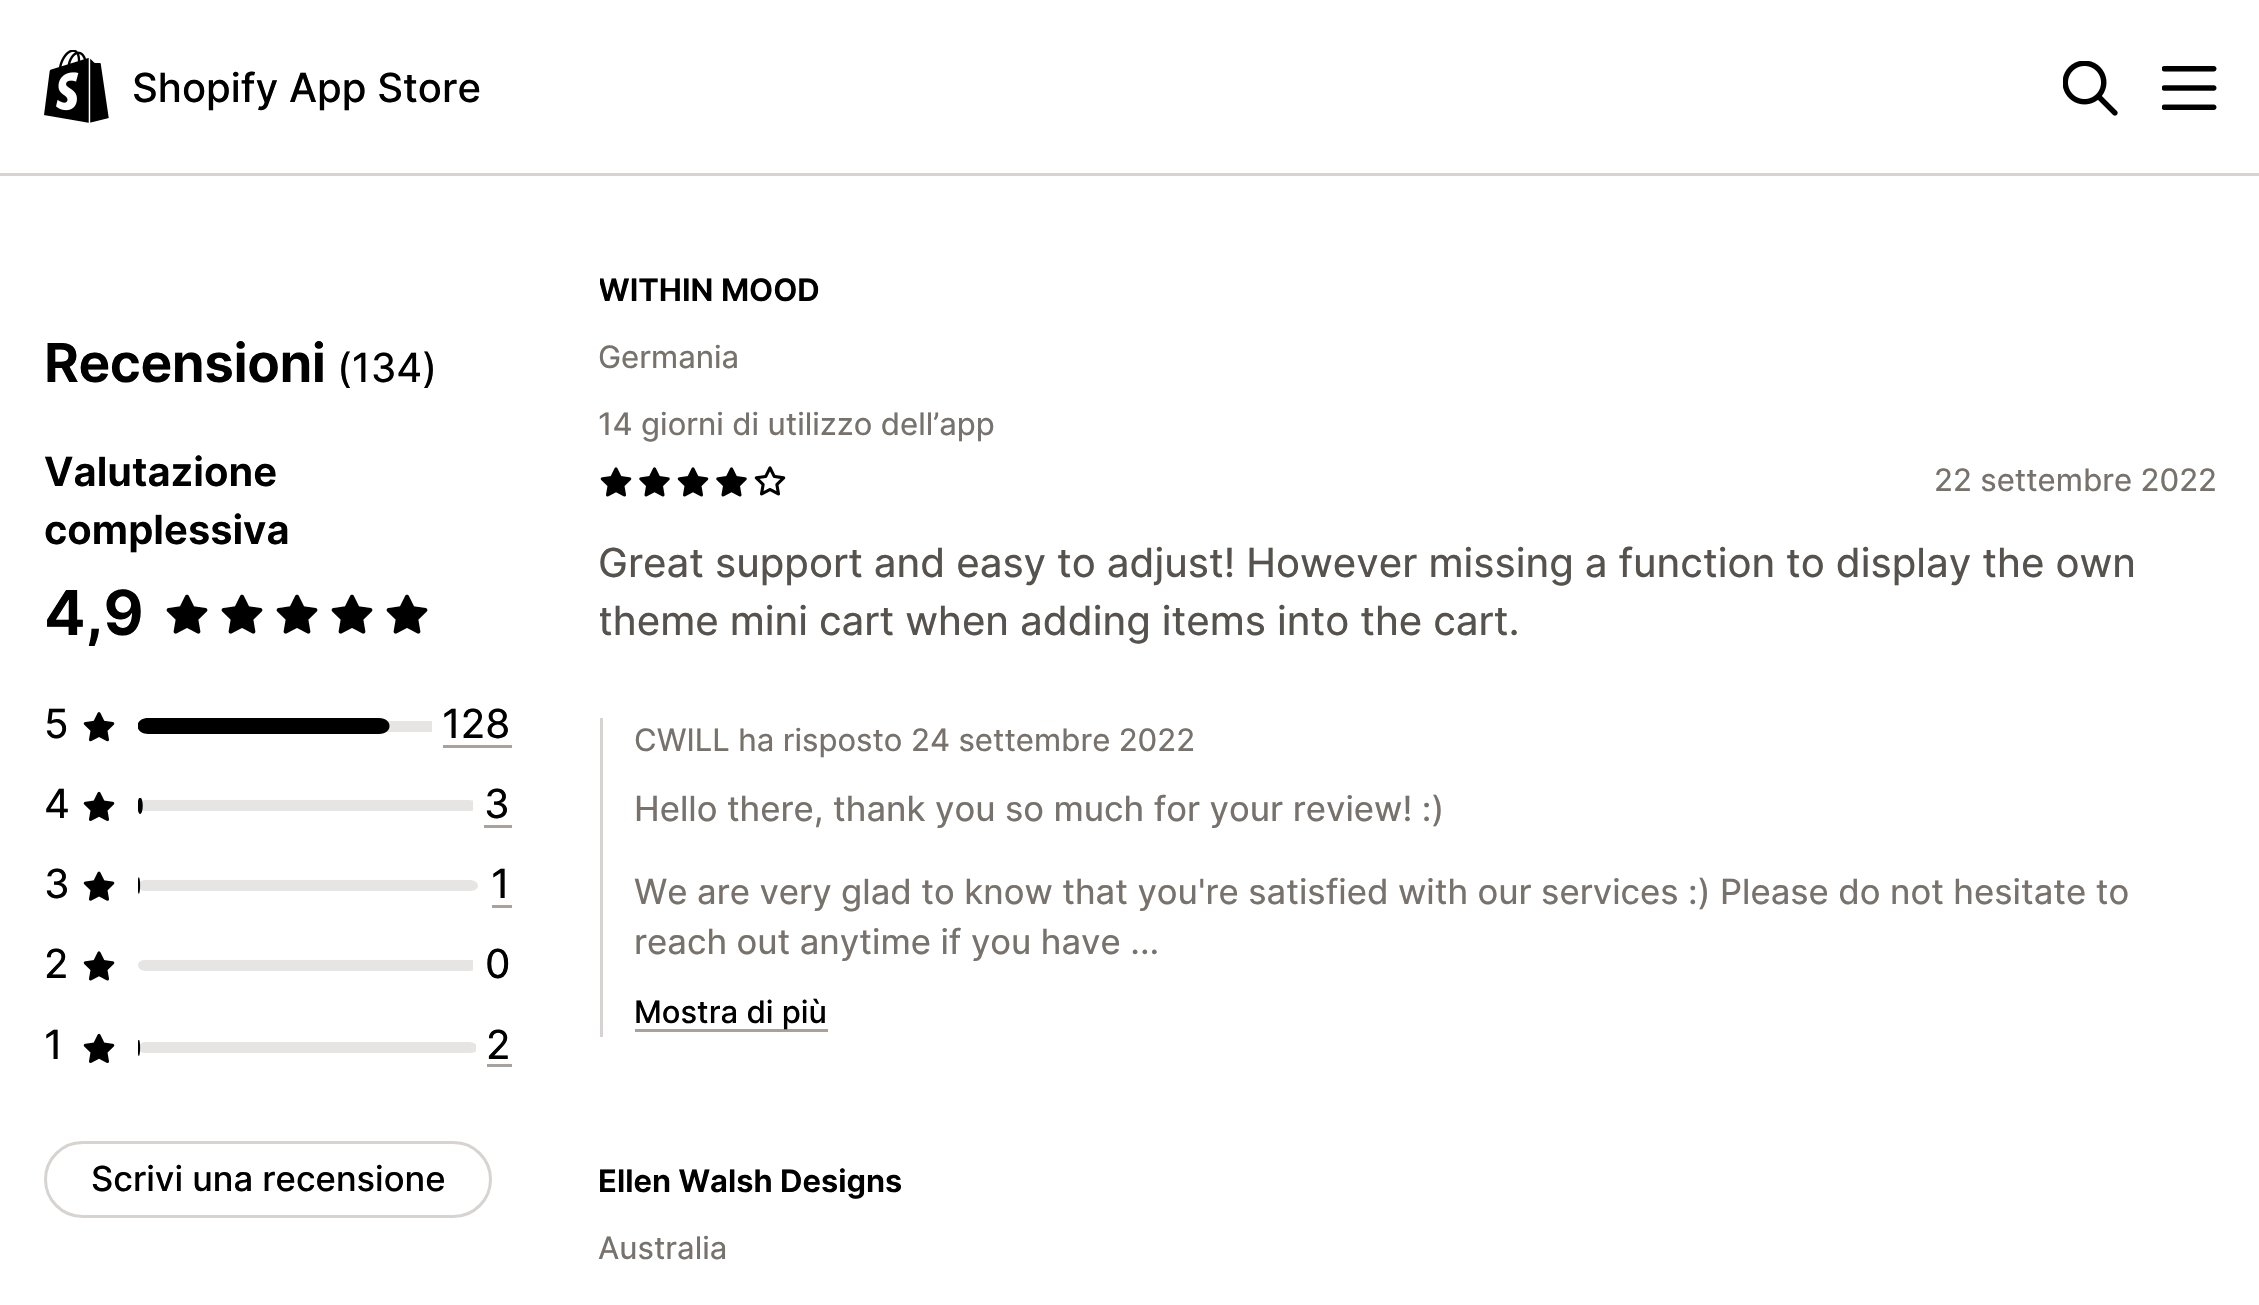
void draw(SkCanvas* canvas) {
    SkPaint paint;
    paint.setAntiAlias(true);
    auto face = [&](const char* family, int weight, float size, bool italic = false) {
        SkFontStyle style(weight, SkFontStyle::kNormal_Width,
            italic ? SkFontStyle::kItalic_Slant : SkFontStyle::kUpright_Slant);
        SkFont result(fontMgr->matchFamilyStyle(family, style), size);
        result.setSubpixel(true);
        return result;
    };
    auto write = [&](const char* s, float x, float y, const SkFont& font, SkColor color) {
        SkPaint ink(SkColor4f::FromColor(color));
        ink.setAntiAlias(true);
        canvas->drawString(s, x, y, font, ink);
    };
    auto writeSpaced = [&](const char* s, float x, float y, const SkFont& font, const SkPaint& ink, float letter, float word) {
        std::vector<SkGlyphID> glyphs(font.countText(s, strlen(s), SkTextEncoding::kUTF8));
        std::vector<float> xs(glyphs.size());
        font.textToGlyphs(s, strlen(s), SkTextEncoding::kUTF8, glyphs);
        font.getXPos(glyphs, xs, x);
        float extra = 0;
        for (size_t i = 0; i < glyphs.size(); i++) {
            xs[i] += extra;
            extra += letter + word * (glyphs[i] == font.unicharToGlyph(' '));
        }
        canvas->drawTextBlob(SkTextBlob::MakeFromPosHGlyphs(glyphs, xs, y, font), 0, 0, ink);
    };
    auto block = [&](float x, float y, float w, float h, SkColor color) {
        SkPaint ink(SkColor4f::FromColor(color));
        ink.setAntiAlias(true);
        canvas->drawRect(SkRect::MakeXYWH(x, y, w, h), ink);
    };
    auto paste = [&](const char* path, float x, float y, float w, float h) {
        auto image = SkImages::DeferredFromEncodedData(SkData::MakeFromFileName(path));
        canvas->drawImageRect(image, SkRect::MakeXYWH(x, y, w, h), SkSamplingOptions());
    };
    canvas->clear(SK_ColorWHITE);
    block(0, 173, 2259, 3, SkColorSetRGB(214, 211, 209));
    paste("pic1.png", 44, 50, 65, 73);
    auto kFont1 = face("Inter", 500, 40.1f);
    write("Shopify App Store", 132, 102, kFont1, SK_ColorBLACK);
    paste("pic2.png", 2063, 61, 55, 55);
    paste("pic3.png", 2162, 66, 55, 44);
    auto kFont2 = face("Inter", 600, 53.5f);
    paint.setColor(SK_ColorBLACK);
    writeSpaced("Recensioni", 44, 382, kFont2, paint, -0.5f, 0);
    auto kFont3 = face("Inter", 400, 40.1f);
    write("(134)", 337, 382, kFont3, SK_ColorBLACK);
    auto kFont4 = face("Inter", 600, 40.1f);
    write("Valutazione", 44, 486, kFont4, SK_ColorBLACK);
    write("complessiva", 44, 544, kFont4, SK_ColorBLACK);
    auto kFont5 = face("Inter", 600, 62);
    writeSpaced("4,9", 44, 635, kFont5, paint, -0.5f, 0);
    paste("pic4.png", 166, 594, 42, 40);
    paste("pic4.png", 221, 594, 42, 40);
    paste("pic4.png", 276, 594, 42, 40);
    paste("pic4.png", 331, 594, 42, 40);
    paste("pic4.png", 386, 594, 42, 40);
    write("5", 44, 738, kFont3, SK_ColorBLACK);
    paste("pic5.png", 83, 712, 32, 30);
    canvas->save();
    canvas->clipRect(SkRect::MakeXYWH(138, 721, 352, 11));
    paint.setColor(SkColorSetRGB(231, 229, 228));
    canvas->drawPath(SkPathBuilder().moveTo(146, 720).lineTo(469, 720).cubicTo(474, 720, 478, 723, 478, 726).cubicTo(478, 729, 474, 732, 469, 732).lineTo(146, 732).cubicTo(141, 732, 138, 729, 138, 726).cubicTo(138, 723, 141, 720, 146, 720).close().detach(), paint);
    canvas->restore();
    block(432, 721, 46, 11, SK_ColorWHITE);
    write("128", 442, 738, kFont3, SK_ColorBLACK);
    block(443, 745, 69, 3, SkColorSetRGB(168, 162, 159));
    canvas->save();
    canvas->clipRect(SkRect::MakeXYWH(138, 718, 264, 16));
    paint.setColor(SK_ColorBLACK);
    canvas->drawPath(SkPathBuilder().moveTo(148, 718).lineTo(379, 718).cubicTo(393, 718, 393, 734, 379, 734).lineTo(148, 734).cubicTo(134, 734, 134, 718, 148, 718).close().detach(), paint);
    canvas->restore();
    write("4", 44, 818, kFont3, SK_ColorBLACK);
    paste("pic6.png", 83, 791, 32, 30);
    paint.setColor(SkColorSetRGB(231, 229, 228));
    canvas->drawPath(SkPathBuilder().moveTo(146, 800).lineTo(469, 800).cubicTo(474, 800, 478, 803, 478, 806).cubicTo(478, 809, 474, 811, 469, 811).lineTo(146, 811).cubicTo(141, 811, 138, 809, 138, 806).cubicTo(138, 803, 141, 800, 146, 800).close().detach(), paint);
    paste("pic7.png", 138, 798, 5, 16);
    block(473, 800, 5, 11, SK_ColorWHITE);
    write("3", 484, 818, kFont3, SK_ColorBLACK);
    block(484, 825, 28, 3, SkColorSetRGB(168, 162, 159));
    write("3", 44, 898, kFont3, SK_ColorBLACK);
    paste("pic8.png", 83, 871, 32, 30);
    canvas->drawPath(SkPathBuilder().moveTo(146, 880).lineTo(469, 880).cubicTo(474, 880, 478, 882, 478, 886).cubicTo(478, 889, 474, 891, 469, 891).lineTo(146, 891).cubicTo(141, 891, 138, 889, 138, 886).cubicTo(138, 882, 141, 880, 146, 880).close().detach(), paint);
    paste("pic9.png", 138, 877, 3, 17);
    write("1", 491, 898, kFont3, SK_ColorBLACK);
    block(492, 905, 20, 3, SkColorSetRGB(168, 162, 159));
    write("2", 44, 978, kFont3, SK_ColorBLACK);
    paste("pic10.png", 83, 951, 32, 30);
    canvas->drawPath(SkPathBuilder().moveTo(146, 960).lineTo(469, 960).cubicTo(474, 960, 478, 962, 478, 965).cubicTo(478, 968, 474, 971, 469, 971).lineTo(146, 971).cubicTo(141, 971, 138, 968, 138, 965).cubicTo(138, 962, 141, 960, 146, 960).close().detach(), paint);
    block(473, 960, 5, 11, SK_ColorWHITE);
    write("0", 485, 978, kFont3, SK_ColorBLACK);
    write("1", 44, 1059, kFont3, SK_ColorBLACK);
    paste("pic6.png", 83, 1033, 32, 30);
    canvas->drawPath(SkPathBuilder().moveTo(146, 1042).lineTo(469, 1042).cubicTo(474, 1042, 478, 1045, 478, 1048).cubicTo(478, 1051, 474, 1053, 469, 1053).lineTo(146, 1053).cubicTo(141, 1053, 138, 1051, 138, 1048).cubicTo(138, 1045, 141, 1042, 146, 1042).close().detach(), paint);
    paste("pic11.png", 138, 1040, 3, 16);
    block(476, 1044, 2, 7, SK_ColorWHITE);
    write("2", 486, 1059, kFont3, SK_ColorBLACK);
    block(487, 1064, 25, 3, SkColorSetRGB(168, 162, 159));
    paint.setStyle(SkPaint::kStroke_Style);
    paint.setStrokeWidth(3);
    paint.setColor(SkColorSetRGB(214, 211, 209));
    canvas->drawRoundRect(SkRect::MakeXYWH(45.5f, 1142.5f, 445, 74), 37, 37, paint);
    auto kFont6 = face("Inter", 500, 34.6f);
    write("Scrivi una recensione", 91, 1191, kFont6, SK_ColorBLACK);
    canvas->save();
    canvas->clipRect(SkRect::MakeXYWH(600, 267, 220, 47));
    auto kFont7 = face("Inter", 600, 31);
    write("WITHIN MOOD", 598, 301, kFont7, SK_ColorBLACK);
    canvas->restore();
    auto kFont8 = face("Inter", 400, 31);
    write("Germania", 598, 368, kFont8, SkColorSetRGB(120, 114, 109));
    write("14 giorni di utilizzo dell’app", 598, 435, kFont8, SkColorSetRGB(120, 114, 109));
    paste("pic10.png", 600, 467, 32, 30);
    paste("pic12.png", 639, 467, 31, 30);
    paste("pic10.png", 677, 467, 32, 30);
    paste("pic12.png", 716, 467, 31, 30);
    paste("pic13.png", 754, 466, 32, 30);
    write("22 settembre 2022", 1934, 491, kFont8, SkColorSetRGB(120, 114, 109));
    write("Great support and easy to adjust! However missing a function to display the own", 598, 577, kFont3, SkColorSetRGB(86, 82, 78));
    canvas->save();
    canvas->clipRect(SkRect::MakeXYWH(600, 457, 1617, 217));
    write("theme mini cart when adding items into the cart.", 598, 635, kFont3, SkColorSetRGB(86, 82, 78));
    canvas->restore();
    block(600, 718, 3, 319, SkColorSetRGB(214, 211, 209));
    write("CWILL ha risposto", 634, 751, kFont8, SkColorSetRGB(120, 114, 109));
    write("24 settembre 2022", 911, 751, kFont8, SkColorSetRGB(120, 114, 109));
    auto kFont9 = face("Inter", 400, 34.6f);
    write("Hello there, thank you so much for your review! :)", 634, 821, kFont9, SkColorSetRGB(120, 114, 109));
    write("We are very glad to know that you're satisfied with our services :) Please do not hesitate to", 634, 904, kFont9, SkColorSetRGB(120, 114, 109));
    write("reach out anytime if you have ...", 634, 954, kFont9, SkColorSetRGB(120, 114, 109));
    block(635, 1029, 193, 3, SkColorSetRGB(168, 162, 159));
    auto kFont10 = face("Inter", 500, 31);
    write("Mostra di più", 634, 1023, kFont10, SK_ColorBLACK);
    write("Ellen Walsh Designs", 598, 1192, kFont7, SK_ColorBLACK);
    write("Australia", 598, 1259, kFont8, SkColorSetRGB(120, 114, 109));
}
